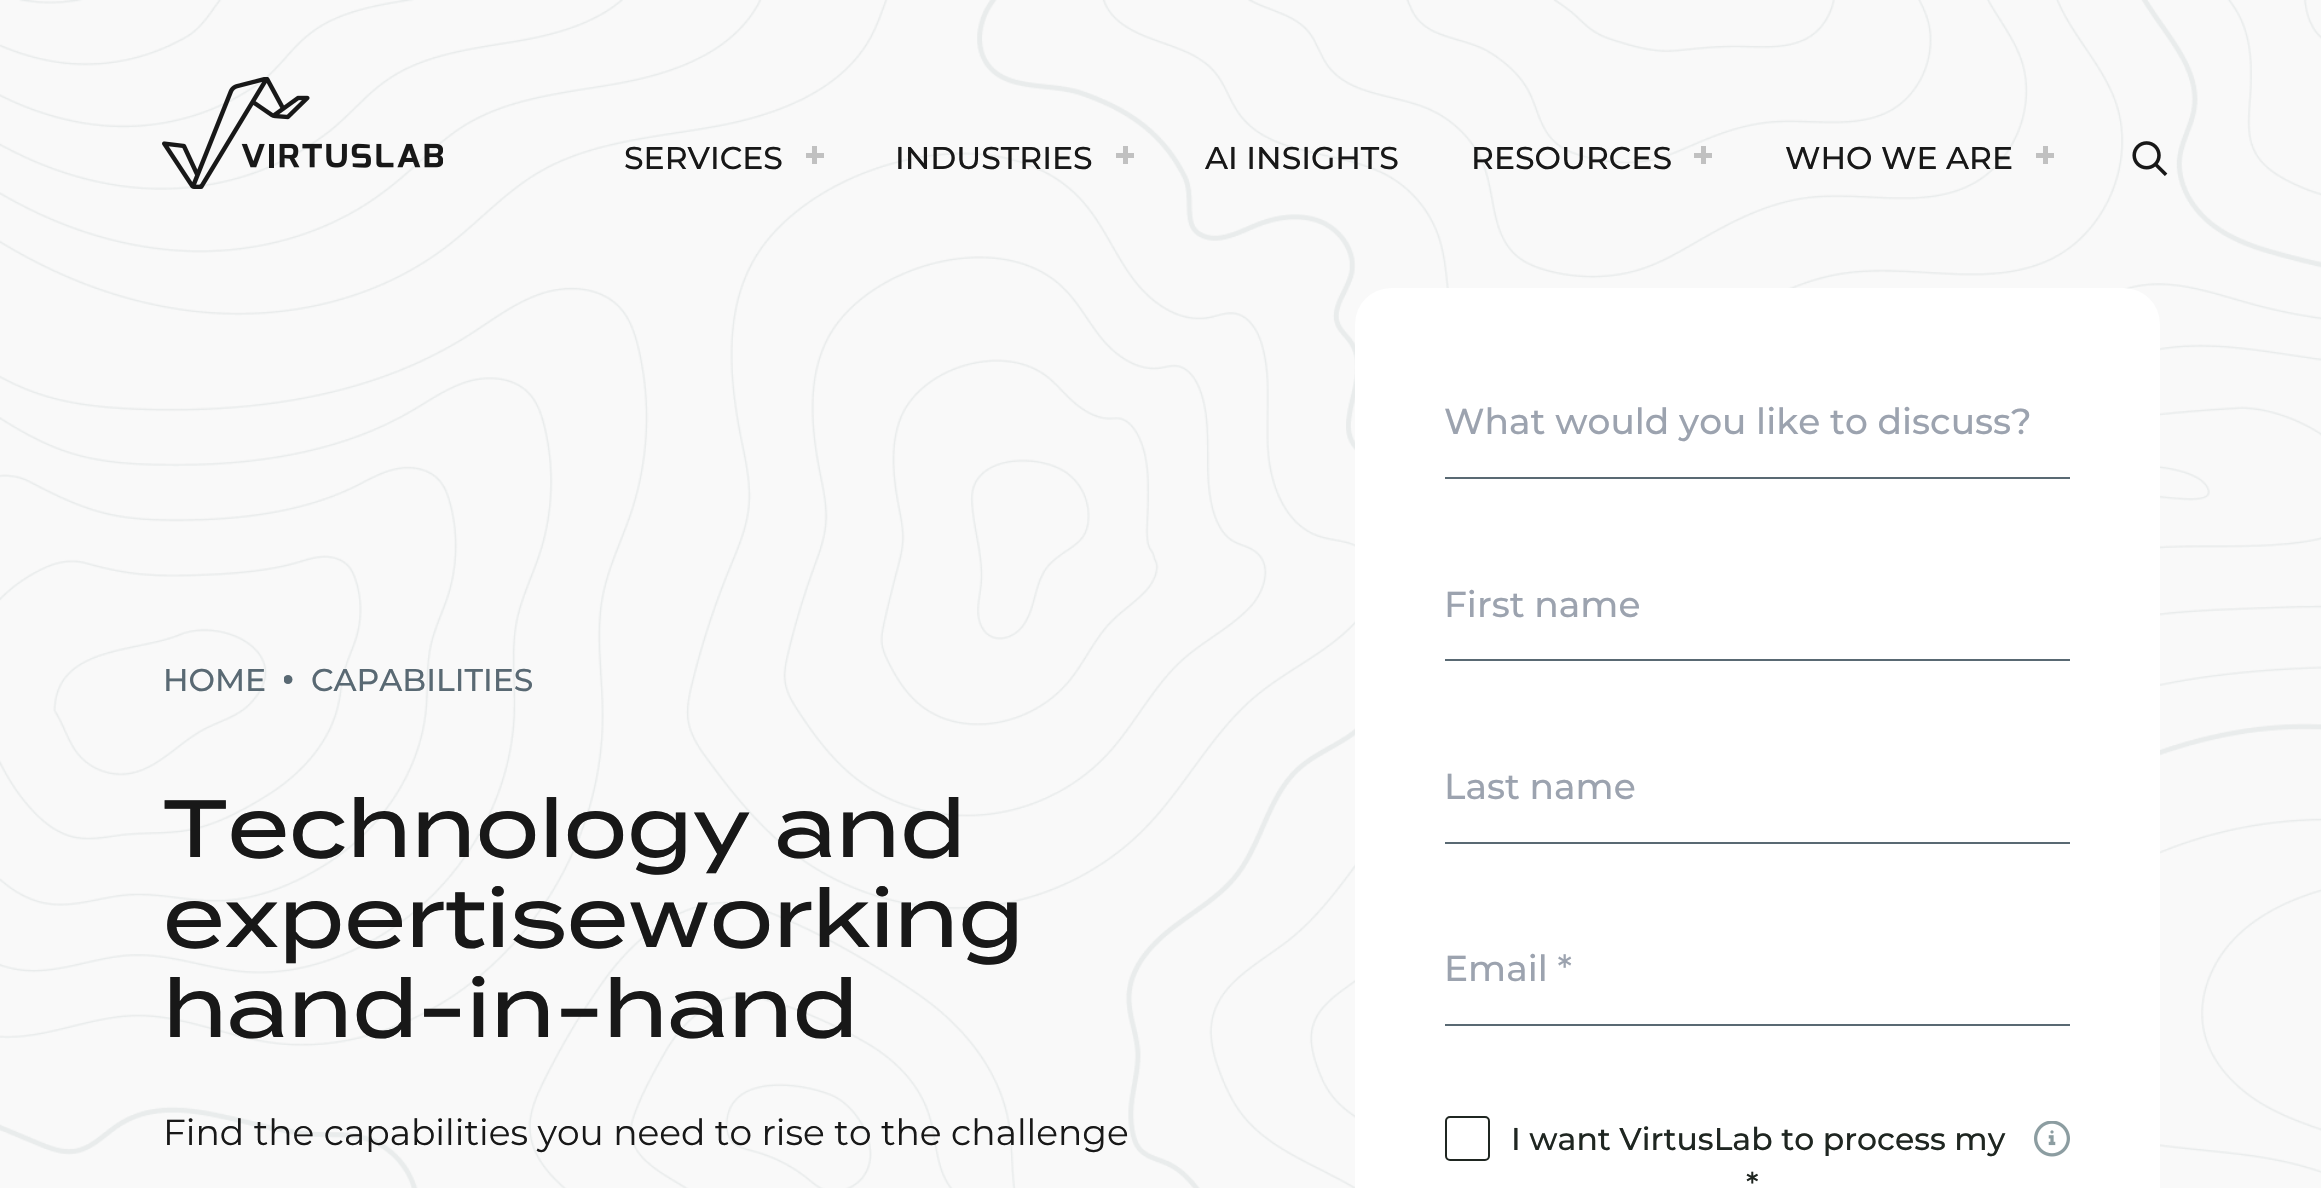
void draw(SkCanvas* canvas) {
    SkPaint paint;
    paint.setAntiAlias(true);
    auto face = [&](const char* family, int weight, float size, bool italic = false) {
        SkFontStyle style(weight, SkFontStyle::kNormal_Width,
            italic ? SkFontStyle::kItalic_Slant : SkFontStyle::kUpright_Slant);
        SkFont result(fontMgr->matchFamilyStyle(family, style), size);
        result.setSubpixel(true);
        return result;
    };
    auto write = [&](const char* s, float x, float y, const SkFont& font, SkColor color) {
        SkPaint ink(SkColor4f::FromColor(color));
        ink.setAntiAlias(true);
        canvas->drawString(s, x, y, font, ink);
    };
    auto block = [&](float x, float y, float w, float h, SkColor color) {
        SkPaint ink(SkColor4f::FromColor(color));
        ink.setAntiAlias(true);
        canvas->drawRect(SkRect::MakeXYWH(x, y, w, h), ink);
    };
    auto card = [&](float x, float y, float w, float h, float radius, SkColor color) {
        SkPaint ink(SkColor4f::FromColor(color));
        ink.setAntiAlias(true);
        canvas->drawRoundRect(SkRect::MakeXYWH(x, y, w, h), radius, radius, ink);
    };
    auto paste = [&](const char* path, float x, float y, float w, float h) {
        auto image = SkImages::DeferredFromEncodedData(SkData::MakeFromFileName(path));
        canvas->drawImageRect(image, SkRect::MakeXYWH(x, y, w, h), SkSamplingOptions());
    };
    canvas->clear(SkColorSetRGB(249, 249, 249));
    paste("pic3.png", 0, 0, 2321, 1188);
    paste("pic1.png", 162, 77, 281, 112);
    auto kFont1 = face("Montserrat", 500, 31.5f);
    write("SERVICES", 624, 169, kFont1, SkColorSetRGB(24, 24, 24));
    block(806, 153, 18, 5, SkColorSetRGB(193, 193, 193));
    block(812, 146, 5, 18, SkColorSetRGB(193, 193, 193));
    write("INDUSTRIES", 895, 169, kFont1, SkColorSetRGB(24, 24, 24));
    block(1116, 153, 18, 5, SkColorSetRGB(193, 193, 193));
    block(1123, 146, 5, 18, SkColorSetRGB(193, 193, 193));
    write("AI INSIGHTS", 1205, 169, kFont1, SkColorSetRGB(24, 24, 24));
    write("RESOURCES", 1471, 169, kFont1, SkColorSetRGB(24, 24, 24));
    block(1694, 153, 18, 5, SkColorSetRGB(193, 193, 193));
    block(1701, 146, 5, 18, SkColorSetRGB(193, 193, 193));
    write("WHO WE ARE", 1785, 169, kFont1, SkColorSetRGB(24, 24, 24));
    block(2036, 153, 18, 5, SkColorSetRGB(193, 193, 193));
    block(2043, 146, 5, 18, SkColorSetRGB(193, 193, 193));
    paste("pic2.png", 2132, 141, 36, 35);
    write("HOME", 163, 691, kFont1, SkColorSetRGB(89, 105, 115));
    canvas->save();
    canvas->clipRect(SkRect::MakeXYWH(284, 675, 9, 9));
    paint.setColor(SkColorSetRGB(89, 105, 115));
    canvas->drawCircle(288, 679.5f, 4.5f, paint);
    canvas->restore();
    write("CAPABILITIES", 311, 691, kFont1, SkColorSetRGB(89, 105, 115));
    auto kFont2 = face("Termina", 500, 81);
    write("Technology and", 163, 857, kFont2, SkColorSetRGB(24, 24, 24));
    write("expertiseworking", 163, 947, kFont2, SkColorSetRGB(24, 24, 24));
    write("hand-in-hand", 163, 1037, kFont2, SkColorSetRGB(24, 24, 24));
    auto kFont3 = face("Montserrat", 400, 36);
    write("Find the capabilities you need to rise to the challenge", 163, 1145, kFont3, SkColorSetRGB(24, 24, 24));
    card(1355, 288, 805, 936, 36, SK_ColorWHITE);
    block(1445, 477, 625, 2, SkColorSetRGB(89, 105, 115));
    auto kFont4 = face("Montserrat", 500, 36);
    write("What would you like to discuss?", 1444, 434, kFont4, SkColorSetRGB(156, 163, 175));
    block(1445, 659, 625, 2, SkColorSetRGB(89, 105, 115));
    write("First name", 1444, 617, kFont4, SkColorSetRGB(156, 163, 175));
    block(1445, 842, 625, 2, SkColorSetRGB(89, 105, 115));
    write("Last name", 1444, 799, kFont4, SkColorSetRGB(156, 163, 175));
    block(1445, 1024, 625, 2, SkColorSetRGB(89, 105, 115));
    write("Email *", 1444, 981, kFont4, SkColorSetRGB(156, 163, 175));
    paint.setStyle(SkPaint::kStroke_Style);
    paint.setStrokeWidth(2);
    paint.setColor(SkColorSetRGB(31, 38, 33));
    canvas->drawRoundRect(SkRect::MakeXYWH(1446, 1117, 43, 43), 4, 4, paint);
    write("I want VirtusLab to process my", 1511, 1150, kFont1, SkColorSetRGB(31, 38, 33));
    write("*", 1746, 1195, kFont1, SkColorSetRGB(31, 38, 33));
    paste("pic4.png", 2034, 1121, 36, 36);
}
